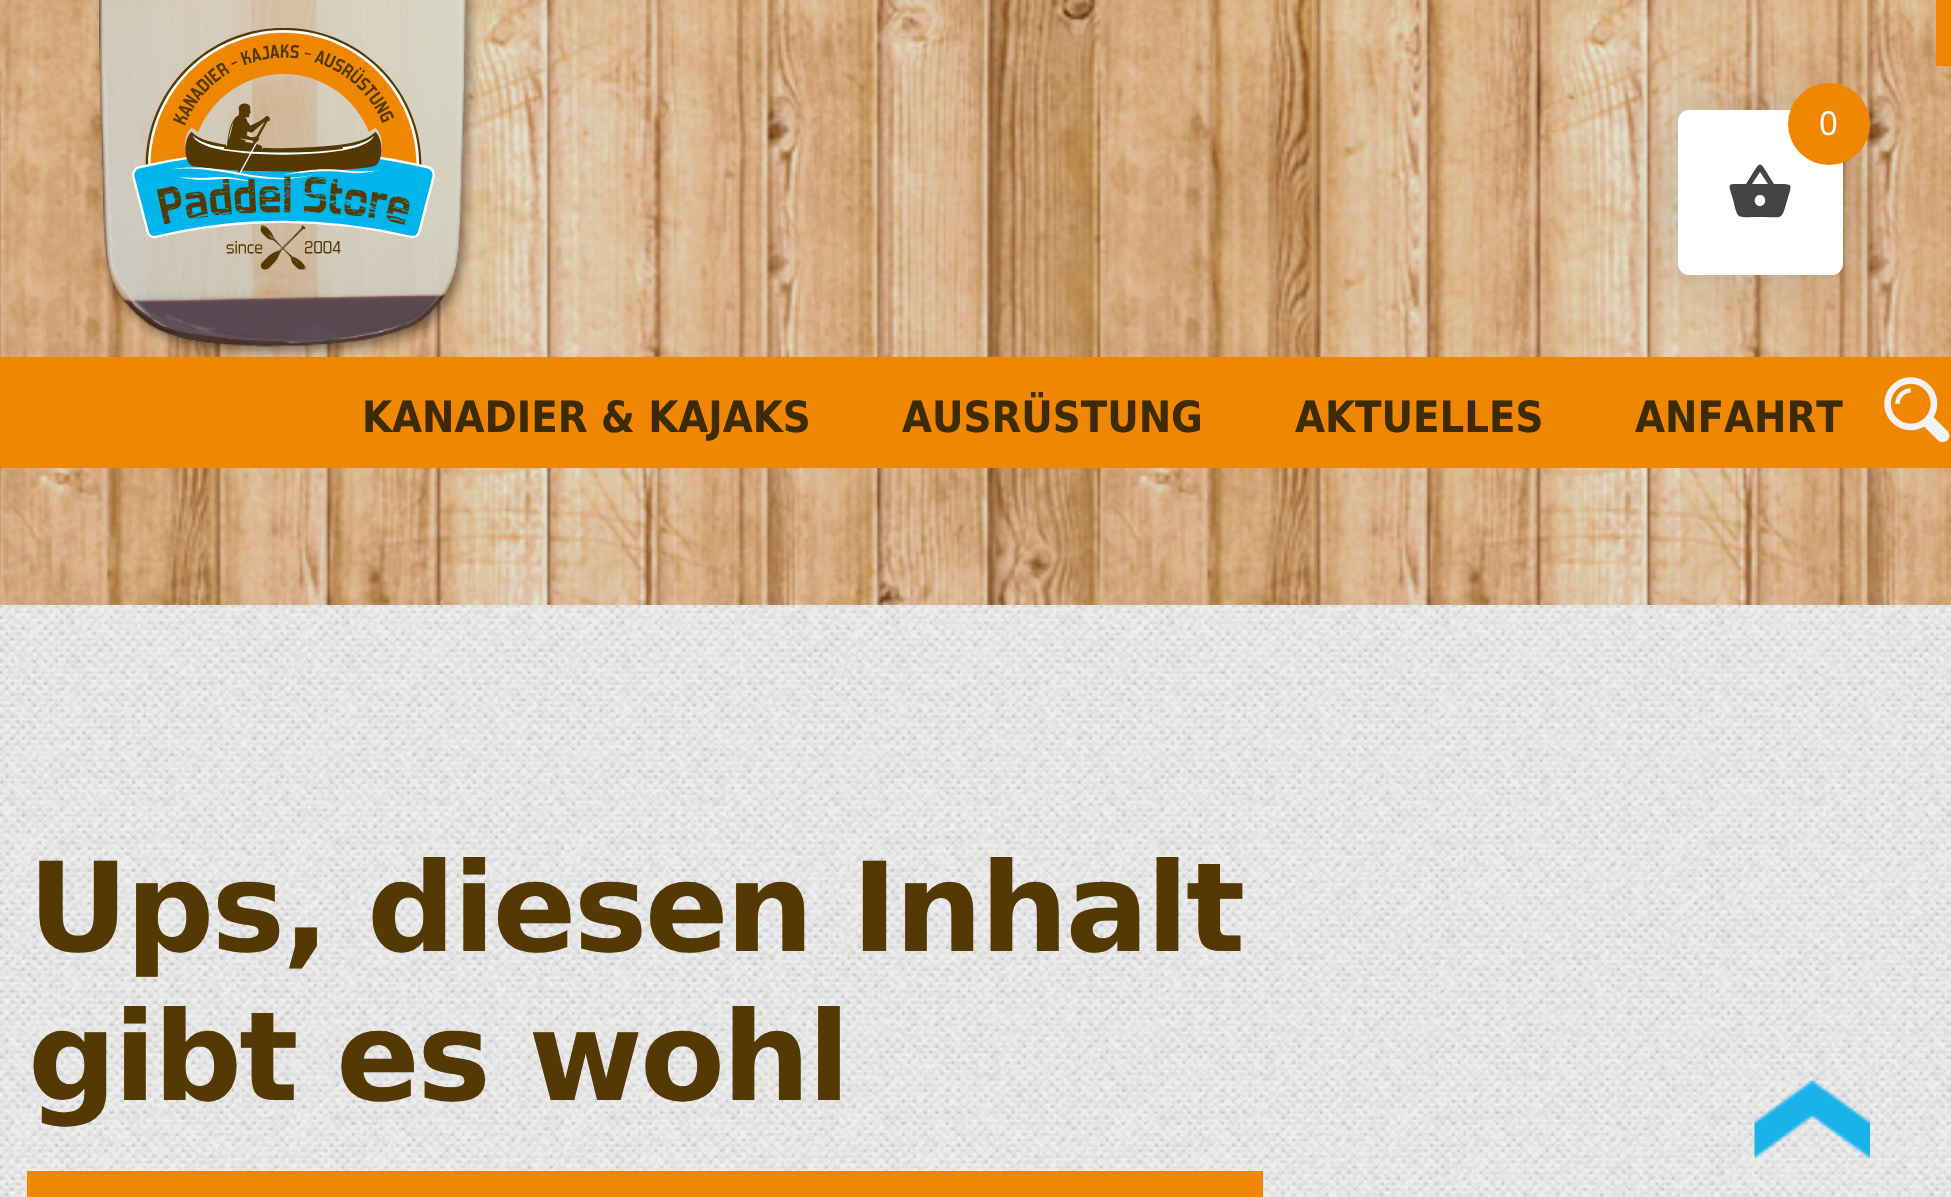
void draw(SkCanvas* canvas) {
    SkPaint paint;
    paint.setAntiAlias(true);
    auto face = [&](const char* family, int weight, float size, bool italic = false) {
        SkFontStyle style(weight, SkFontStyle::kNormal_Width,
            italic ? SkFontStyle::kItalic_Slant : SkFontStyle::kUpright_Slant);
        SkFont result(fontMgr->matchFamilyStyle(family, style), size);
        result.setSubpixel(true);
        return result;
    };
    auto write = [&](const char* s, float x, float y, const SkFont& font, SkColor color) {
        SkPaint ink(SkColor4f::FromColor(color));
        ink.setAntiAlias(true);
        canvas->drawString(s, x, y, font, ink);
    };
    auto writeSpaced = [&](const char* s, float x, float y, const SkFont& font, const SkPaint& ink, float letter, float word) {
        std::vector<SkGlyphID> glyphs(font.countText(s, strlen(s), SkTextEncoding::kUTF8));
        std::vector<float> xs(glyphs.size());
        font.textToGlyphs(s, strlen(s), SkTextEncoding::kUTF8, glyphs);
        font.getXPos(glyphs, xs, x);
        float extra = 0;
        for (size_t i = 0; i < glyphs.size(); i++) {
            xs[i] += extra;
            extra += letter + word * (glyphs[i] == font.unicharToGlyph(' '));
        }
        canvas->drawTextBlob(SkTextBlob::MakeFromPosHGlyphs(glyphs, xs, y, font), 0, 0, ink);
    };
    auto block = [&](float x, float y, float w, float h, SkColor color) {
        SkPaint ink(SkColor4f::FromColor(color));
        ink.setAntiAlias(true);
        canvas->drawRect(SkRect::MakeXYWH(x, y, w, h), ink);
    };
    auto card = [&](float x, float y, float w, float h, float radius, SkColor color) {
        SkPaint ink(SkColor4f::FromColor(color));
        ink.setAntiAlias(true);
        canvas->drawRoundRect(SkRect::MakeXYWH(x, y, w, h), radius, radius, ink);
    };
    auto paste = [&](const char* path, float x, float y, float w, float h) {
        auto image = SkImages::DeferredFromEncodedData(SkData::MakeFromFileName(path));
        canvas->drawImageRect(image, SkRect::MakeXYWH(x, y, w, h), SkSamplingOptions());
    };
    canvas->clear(SK_ColorWHITE);
    paste("pic1.png", 0, 0, 1951, 605);
    block(0, 357, 1951, 111, SkColorSetRGB(239, 135, 2));
    paint.setColor(SkColorSetARGB(38, 0, 0, 0));
    paint.setMaskFilter(SkMaskFilter::MakeBlur(kNormal_SkBlurStyle, 27.5f));
    canvas->drawRoundRect(SkRect::MakeXYWH(1678, 110, 165, 165), 11, 11, paint);
    paint.setMaskFilter(nullptr);
    card(1678, 110, 165, 165, 11, SK_ColorWHITE);
    paint.setColor(SkColorSetRGB(68, 68, 68));
    canvas->drawPath(SkPathBuilder().moveTo(1760, 206).cubicTo(1767, 206, 1767, 195, 1760, 195).cubicTo(1753, 195, 1753, 206, 1760, 206).close().moveTo(1752, 184).lineTo(1768, 184).lineTo(1760, 172).close().moveTo(1774, 184).cubicTo(1795, 184, 1792, 183, 1787, 201).cubicTo(1781, 221, 1784, 217, 1760, 217).cubicTo(1734, 217, 1739, 221, 1732, 196).cubicTo(1728, 182, 1727, 184, 1746, 184).cubicTo(1763, 158, 1757, 158, 1774, 184).close().detach(), paint);
    paint.setColor(SkColorSetRGB(240, 135, 0));
    canvas->drawCircle(1829, 124, 41, paint);
    auto kFont1 = face("Open Sans", 400, 33);
    write("0", 1819, 135, kFont1, SK_ColorWHITE);
    paste("pic2.png", 99, 0, 379, 358);
    paste("pic3.png", 132, 28, 303, 242);
    block(1936, 0, 15, 66, SkColorSetRGB(239, 135, 2));
    auto kFont2 = face("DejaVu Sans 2", 700, 43.1f);
    write("KANADIER & KAJAKS", 362, 432, kFont2, SkColorSetRGB(63, 43, 2));
    write("AUSRÜSTUNG", 902, 432, kFont2, SkColorSetRGB(63, 43, 2));
    write("AKTUELLES", 1295, 432, kFont2, SkColorSetRGB(63, 43, 2));
    write("ANFAHRT", 1635, 432, kFont2, SkColorSetRGB(63, 43, 2));
    paste("pic4.png", 1884, 377, 66, 66);
    paste("pic5.png", 0, 605, 1951, 592);
    block(27, 1171, 1236, 26, SkColorSetRGB(239, 135, 2));
    auto kFont3 = face("DejaVu Sans", 700, 123.75f);
    paint.setColor(SkColorSetRGB(84, 58, 2));
    writeSpaced("Ups, diesen Inhalt", 28, 951, kFont3, paint, -2.75f, 0);
    writeSpaced("gibt es wohl", 28, 1100, kFont3, paint, -2.75f, 0);
    paste("pic6.png", 1754, 1080, 116, 78);
}
